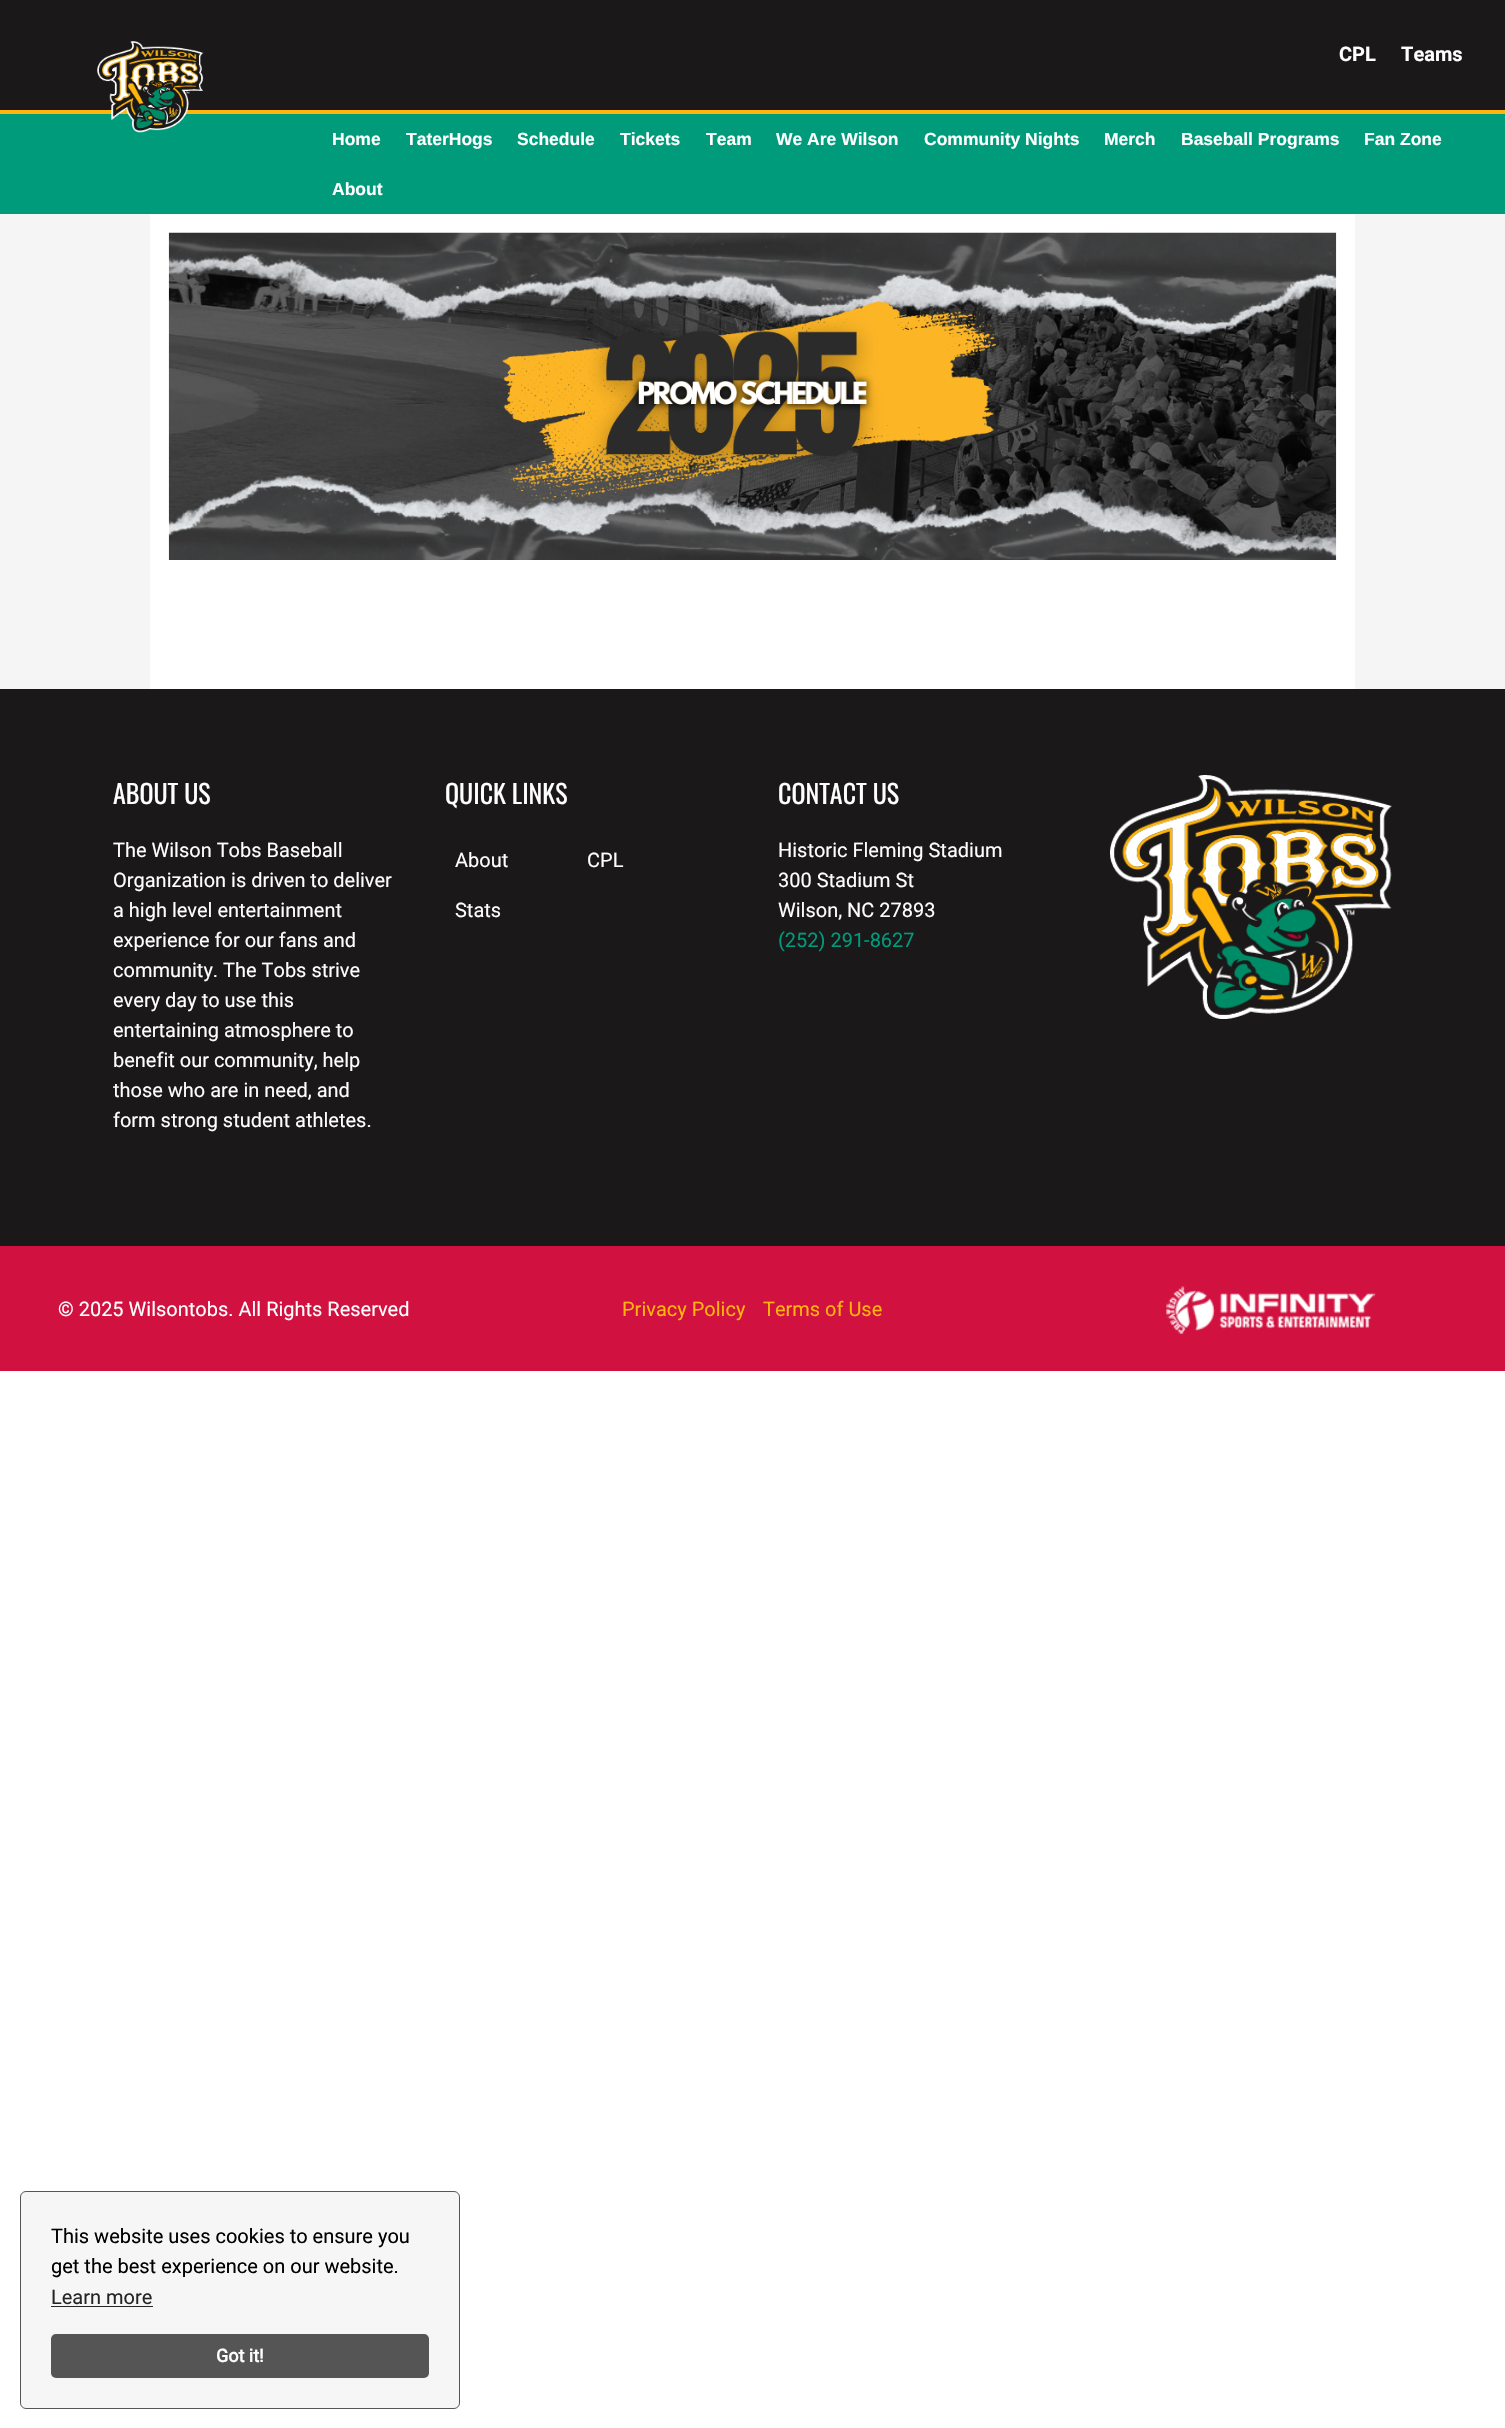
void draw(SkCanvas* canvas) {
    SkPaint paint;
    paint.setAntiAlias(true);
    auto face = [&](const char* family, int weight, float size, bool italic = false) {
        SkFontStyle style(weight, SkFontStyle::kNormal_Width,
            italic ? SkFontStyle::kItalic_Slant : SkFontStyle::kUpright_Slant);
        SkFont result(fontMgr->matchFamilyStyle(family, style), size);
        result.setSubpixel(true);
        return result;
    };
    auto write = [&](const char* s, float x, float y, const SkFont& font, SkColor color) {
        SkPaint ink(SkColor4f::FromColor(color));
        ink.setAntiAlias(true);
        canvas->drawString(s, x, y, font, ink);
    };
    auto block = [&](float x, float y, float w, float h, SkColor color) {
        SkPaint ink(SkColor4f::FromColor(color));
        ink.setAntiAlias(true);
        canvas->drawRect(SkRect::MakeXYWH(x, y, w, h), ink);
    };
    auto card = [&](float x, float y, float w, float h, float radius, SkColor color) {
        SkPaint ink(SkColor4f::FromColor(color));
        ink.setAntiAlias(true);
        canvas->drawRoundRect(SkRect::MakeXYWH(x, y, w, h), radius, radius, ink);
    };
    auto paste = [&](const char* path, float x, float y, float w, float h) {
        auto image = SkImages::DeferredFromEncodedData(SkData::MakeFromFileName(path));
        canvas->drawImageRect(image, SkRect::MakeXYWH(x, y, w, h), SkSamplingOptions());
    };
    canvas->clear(SK_ColorWHITE);
    block(0, 0, 1505, 110, SkColorSetRGB(26, 24, 25));
    block(0, 110, 1505, 4, SkColorSetRGB(255, 181, 12));
    auto kFont1 = face("Roboto", 700, 20);
    write("CPL", 1339, 61, kFont1, SK_ColorWHITE);
    write("Teams", 1401, 61, kFont1, SK_ColorWHITE);
    block(0, 114, 1505, 100, SkColorSetRGB(0, 155, 123));
    paste("pic1.png", 97, 41, 107, 92);
    auto kFont2 = face("Liberation Sans", 700, 17.5f);
    write("Home", 332, 145, kFont2, SK_ColorWHITE);
    write("TaterHogs", 406, 145, kFont2, SK_ColorWHITE);
    write("Schedule", 517, 145, kFont2, SK_ColorWHITE);
    write("Tickets", 620, 145, kFont2, SK_ColorWHITE);
    write("Team", 706, 145, kFont2, SK_ColorWHITE);
    write("We Are Wilson", 776, 145, kFont2, SK_ColorWHITE);
    write("Community Nights", 924, 145, kFont2, SK_ColorWHITE);
    write("Merch", 1104, 145, kFont2, SK_ColorWHITE);
    write("Baseball Programs", 1181, 145, kFont2, SK_ColorWHITE);
    write("Fan Zone", 1364, 145, kFont2, SK_ColorWHITE);
    write("About", 332, 195, kFont2, SK_ColorWHITE);
    block(0, 214, 1505, 475, SkColorSetRGB(245, 245, 245));
    block(150, 214, 1205, 475, SK_ColorWHITE);
    paste("pic2.png", 168, 232, 1169, 328);
    block(0, 689, 1505, 557, SkColorSetRGB(26, 24, 25));
    auto kFont3 = face("Oswald", 400, 26);
    write("ABOUT US", 113, 804, kFont3, SK_ColorWHITE);
    auto kFont4 = face("Roboto", 400, 20);
    write("The Wilson Tobs Baseball", 113, 857, kFont4, SK_ColorWHITE);
    write("Organization is driven to deliver", 113, 887, kFont4, SK_ColorWHITE);
    write("a high level entertainment", 113, 917, kFont4, SK_ColorWHITE);
    write("experience for our fans and", 113, 947, kFont4, SK_ColorWHITE);
    write("community. The Tobs strive", 113, 977, kFont4, SK_ColorWHITE);
    write("every day to use this", 113, 1007, kFont4, SK_ColorWHITE);
    write("entertaining atmosphere to", 113, 1037, kFont4, SK_ColorWHITE);
    write("benefit our community, help", 113, 1067, kFont4, SK_ColorWHITE);
    write("those who are in need, and", 113, 1097, kFont4, SK_ColorWHITE);
    write("form strong student athletes.", 113, 1127, kFont4, SK_ColorWHITE);
    write("QUICK LINKS", 445, 804, kFont3, SK_ColorWHITE);
    write("About", 455, 867, kFont4, SK_ColorWHITE);
    write("CPL", 587, 867, kFont4, SK_ColorWHITE);
    write("Stats", 455, 917, kFont4, SK_ColorWHITE);
    write("CONTACT US", 778, 804, kFont3, SK_ColorWHITE);
    write("Historic Fleming Stadium", 778, 857, kFont4, SK_ColorWHITE);
    write("300 Stadium St", 778, 887, kFont4, SK_ColorWHITE);
    write("Wilson, NC 27893", 778, 917, kFont4, SK_ColorWHITE);
    write("(252) 291-8627", 778, 947, kFont4, SkColorSetRGB(0, 155, 123));
    paste("pic3.png", 1110, 775, 282, 244);
    block(0, 1246, 1505, 125, SkColorSetRGB(209, 17, 64));
    write("© 2025 Wilsontobs. All Rights Reserved", 58, 1316, kFont4, SK_ColorWHITE);
    write("Privacy Policy", 622, 1316, kFont4, SkColorSetRGB(255, 181, 12));
    write("Terms of Use", 763, 1316, kFont4, SkColorSetRGB(255, 181, 12));
    paste("pic4.png", 1166, 1286, 210, 48);
    paint.setColor(SkColorSetRGB(246, 246, 246));
    canvas->drawRoundRect(SkRect::MakeXYWH(20.5f, 2191.5f, 439, 217), 5.5f, 5.5f, paint);
    paint.setStyle(SkPaint::kStroke_Style);
    paint.setStrokeWidth(1);
    paint.setColor(SkColorSetRGB(85, 85, 85));
    canvas->drawRoundRect(SkRect::MakeXYWH(20.5f, 2191.5f, 439, 217), 5.5f, 5.5f, paint);
    auto kFont5 = face("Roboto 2", 400, 20);
    write("This website uses cookies to ensure you", 51, 2243, kFont5, SK_ColorBLACK);
    write("get the best experience on our website.", 51, 2273, kFont5, SK_ColorBLACK);
    write("Learn more", 51, 2304, kFont4, SkColorSetRGB(37, 37, 37));
    block(51, 2306, 102, 1, SkColorSetRGB(37, 37, 37));
    card(51, 2334, 378, 44, 5, SkColorSetRGB(85, 85, 85));
    auto kFont6 = face("Roboto 2", 700, 18);
    write("Got it!", 216, 2362, kFont6, SK_ColorWHITE);
}
